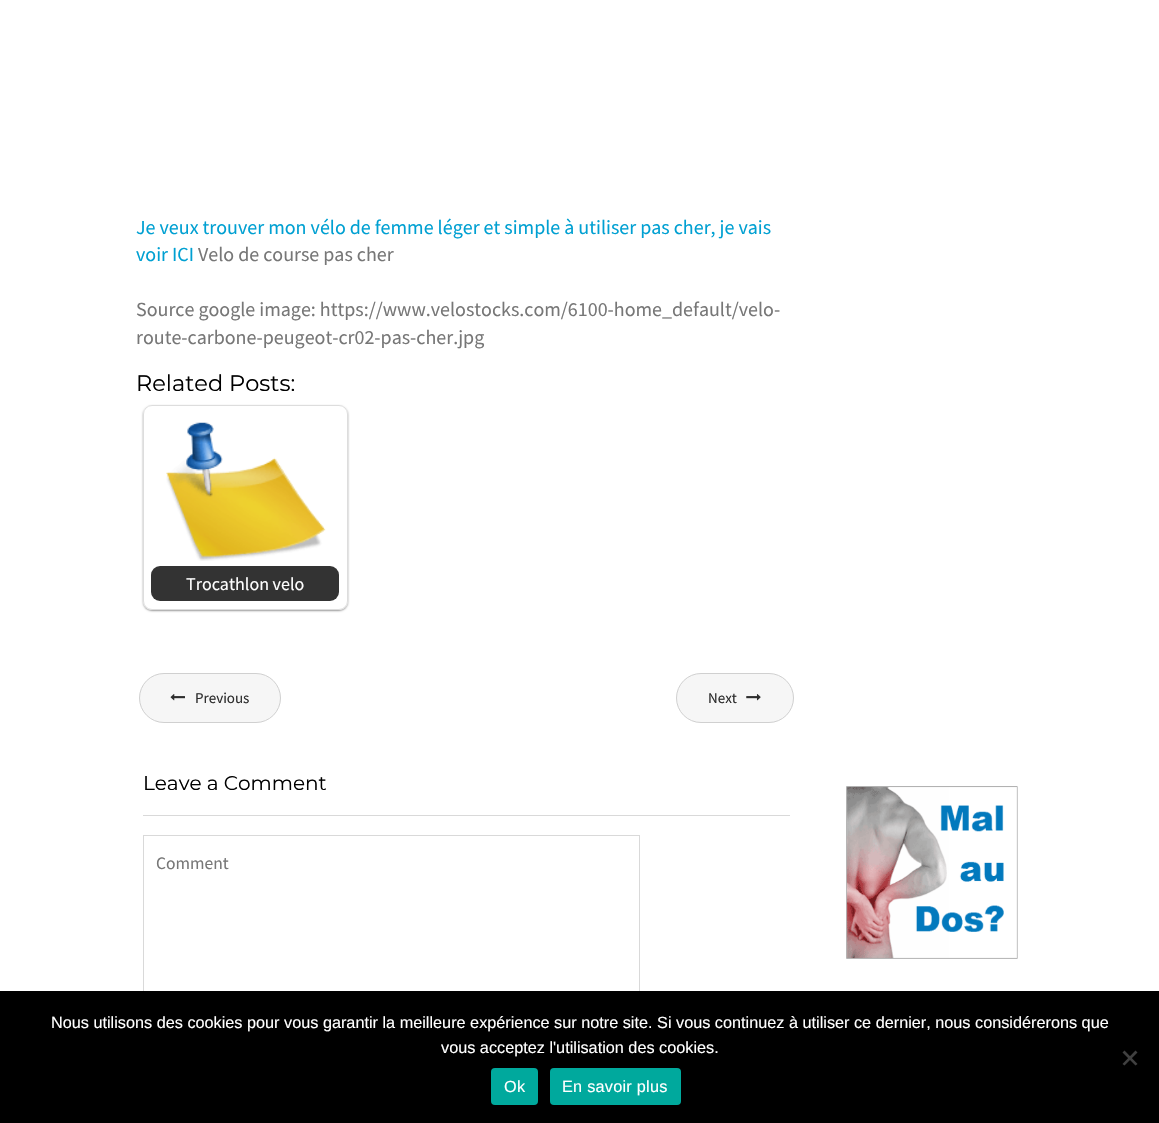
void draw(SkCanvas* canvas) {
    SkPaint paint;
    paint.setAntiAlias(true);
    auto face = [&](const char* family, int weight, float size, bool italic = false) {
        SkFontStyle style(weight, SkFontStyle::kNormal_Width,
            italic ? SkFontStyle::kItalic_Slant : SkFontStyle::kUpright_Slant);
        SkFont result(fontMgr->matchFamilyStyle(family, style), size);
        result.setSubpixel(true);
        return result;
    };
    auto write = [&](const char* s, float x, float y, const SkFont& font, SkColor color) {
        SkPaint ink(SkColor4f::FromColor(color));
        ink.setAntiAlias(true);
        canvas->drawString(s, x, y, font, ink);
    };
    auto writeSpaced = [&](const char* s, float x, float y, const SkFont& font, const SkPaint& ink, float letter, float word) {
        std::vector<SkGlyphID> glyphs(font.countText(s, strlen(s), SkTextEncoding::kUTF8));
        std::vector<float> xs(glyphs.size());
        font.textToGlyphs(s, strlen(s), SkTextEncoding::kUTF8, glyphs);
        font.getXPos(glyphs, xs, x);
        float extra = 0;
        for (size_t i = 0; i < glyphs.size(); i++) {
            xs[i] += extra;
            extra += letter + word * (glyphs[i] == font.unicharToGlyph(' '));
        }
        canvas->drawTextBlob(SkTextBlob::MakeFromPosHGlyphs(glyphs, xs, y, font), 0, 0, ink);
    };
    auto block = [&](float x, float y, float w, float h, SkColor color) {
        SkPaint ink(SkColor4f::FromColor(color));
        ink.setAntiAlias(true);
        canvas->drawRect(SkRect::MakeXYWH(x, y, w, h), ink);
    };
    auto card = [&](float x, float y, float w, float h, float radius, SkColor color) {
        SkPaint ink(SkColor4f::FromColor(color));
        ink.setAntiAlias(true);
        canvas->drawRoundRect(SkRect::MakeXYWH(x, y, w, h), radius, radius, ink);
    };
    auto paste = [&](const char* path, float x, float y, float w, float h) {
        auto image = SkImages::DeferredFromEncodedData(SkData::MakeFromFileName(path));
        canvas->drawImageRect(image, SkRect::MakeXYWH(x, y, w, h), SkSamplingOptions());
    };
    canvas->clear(SK_ColorWHITE);
    auto kFont1 = face("Source Sans Pro", 400, 20);
    write("Je veux trouver mon vélo de femme léger et simple à utiliser pas cher, je vais", 136, 234, kFont1, SkColorSetRGB(0, 160, 210));
    write("voir ICI", 136, 261, kFont1, SkColorSetRGB(0, 160, 210));
    write("Velo de course pas cher", 198, 261, kFont1, SkColorSetRGB(119, 119, 119));
    write("Source google image: https://www.velostocks.com/6100-home_default/velo-", 136, 316, kFont1, SkColorSetRGB(119, 119, 119));
    write("route-carbone-peugeot-cr02-pas-cher.jpg", 136, 344, kFont1, SkColorSetRGB(119, 119, 119));
    auto kFont2 = face("Montserrat", 400, 22.5f);
    write("Related Posts:", 136, 391, kFont2, SK_ColorBLACK);
    canvas->save();
    canvas->clipPath(SkPathBuilder(SkPathFillType::kEvenOdd).moveTo(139, 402).lineTo(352, 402).lineTo(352, 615).lineTo(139, 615).close().moveTo(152, 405).lineTo(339, 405).cubicTo(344, 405, 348, 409, 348, 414).lineTo(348, 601).cubicTo(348, 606, 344, 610, 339, 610).lineTo(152, 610).cubicTo(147, 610, 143, 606, 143, 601).lineTo(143, 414).cubicTo(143, 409, 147, 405, 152, 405).close().detach(), true);
    paint.setColor(SkColorSetARGB(102, 0, 0, 0));
    paint.setMaskFilter(SkMaskFilter::MakeBlur(kNormal_SkBlurStyle, 1));
    canvas->drawRoundRect(SkRect::MakeXYWH(143, 406, 205, 205), 9, 9, paint);
    paint.setMaskFilter(nullptr);
    canvas->restore();
    paint.setStyle(SkPaint::kStroke_Style);
    paint.setStrokeWidth(1);
    paint.setColor(SkColorSetRGB(221, 221, 221));
    canvas->drawRoundRect(SkRect::MakeXYWH(143.5f, 405.5f, 204, 204), 8.5f, 8.5f, paint);
    paste("pic1.png", 166, 422, 160, 139);
    card(151, 566, 188, 35, 9, SkColorSetRGB(51, 51, 51));
    auto kFont3 = face("Source Sans Pro", 400, 18);
    write("Trocathlon velo", 186, 590, kFont3, SK_ColorWHITE);
    paint.setStyle(SkPaint::kFill_Style);
    paint.setColor(SkColorSetRGB(246, 246, 246));
    canvas->drawRoundRect(SkRect::MakeXYWH(139.5f, 673.5f, 141, 49), 24.5f, 24.5f, paint);
    paint.setStyle(SkPaint::kStroke_Style);
    paint.setColor(SkColorSetRGB(208, 208, 208));
    canvas->drawRoundRect(SkRect::MakeXYWH(139.5f, 673.5f, 141, 49), 24.5f, 24.5f, paint);
    paste("pic2.png", 170, 694, 15, 7);
    auto kFont4 = face("Source Sans Pro", 400, 15);
    write("Previous", 195, 703, kFont4, SkColorSetRGB(45, 45, 45));
    paint.setStyle(SkPaint::kFill_Style);
    paint.setColor(SkColorSetRGB(246, 246, 246));
    canvas->drawRoundRect(SkRect::MakeXYWH(676.5f, 673.5f, 117, 49), 24.5f, 24.5f, paint);
    paint.setStyle(SkPaint::kStroke_Style);
    paint.setColor(SkColorSetRGB(208, 208, 208));
    canvas->drawRoundRect(SkRect::MakeXYWH(676.5f, 673.5f, 117, 49), 24.5f, 24.5f, paint);
    write("Next", 708, 703, kFont4, SkColorSetRGB(45, 45, 45));
    paste("pic3.png", 746, 694, 15, 7);
    block(143, 815, 647, 1, SkColorSetRGB(217, 217, 217));
    auto kFont5 = face("Montserrat", 400, 20);
    write("Leave a Comment", 143, 790, kFont5, SK_ColorBLACK);
    paint.setColor(SkColorSetRGB(217, 217, 217));
    canvas->drawRect(SkRect::MakeXYWH(143.5f, 835.5f, 496, 247), paint);
    auto kFont6 = face("Source Sans Pro", 400, 17.5f);
    write("Comment", 156, 869, kFont6, SkColorSetRGB(119, 119, 119));
    paste("pic4.png", 846, 786, 172, 173);
    block(0, 991, 1159, 132, SK_ColorBLACK);
    auto kFont7 = face("Liberation Sans", 400, 16.25f);
    write("Nous utilisons des cookies pour vous garantir la meilleure expérience sur notre site. Si vous continuez à utiliser ce dernier, nous considérerons que", 51, 1028, kFont7, SK_ColorWHITE);
    write("vous acceptez l'utilisation des cookies.", 441, 1053, kFont7, SK_ColorWHITE);
    paint.setStyle(SkPaint::kFill_Style);
    paint.setColor(SkColorSetRGB(64, 64, 64));
    canvas->drawPath(SkPathBuilder().moveTo(1135.5f, 1050.5f).lineTo(1137.5f, 1052.5f).lineTo(1124.5f, 1065.5f).lineTo(1122.5f, 1064).close().detach(), paint);
    canvas->drawPath(SkPathBuilder().moveTo(1122.5f, 1052.5f).lineTo(1124.5f, 1050.5f).lineTo(1137.5f, 1064).lineTo(1135.5f, 1065.5f).close().detach(), paint);
    card(491, 1068, 47, 37, 4, SkColorSetRGB(0, 169, 157));
    paint.setColor(SK_ColorWHITE);
    writeSpaced("Ok", 504, 1092, kFont7, paint, 0.25f, 0);
    card(550, 1068, 131, 37, 4, SkColorSetRGB(0, 169, 157));
    writeSpaced("En savoir plus", 562, 1092, kFont7, paint, 0.25f, 0);
}
